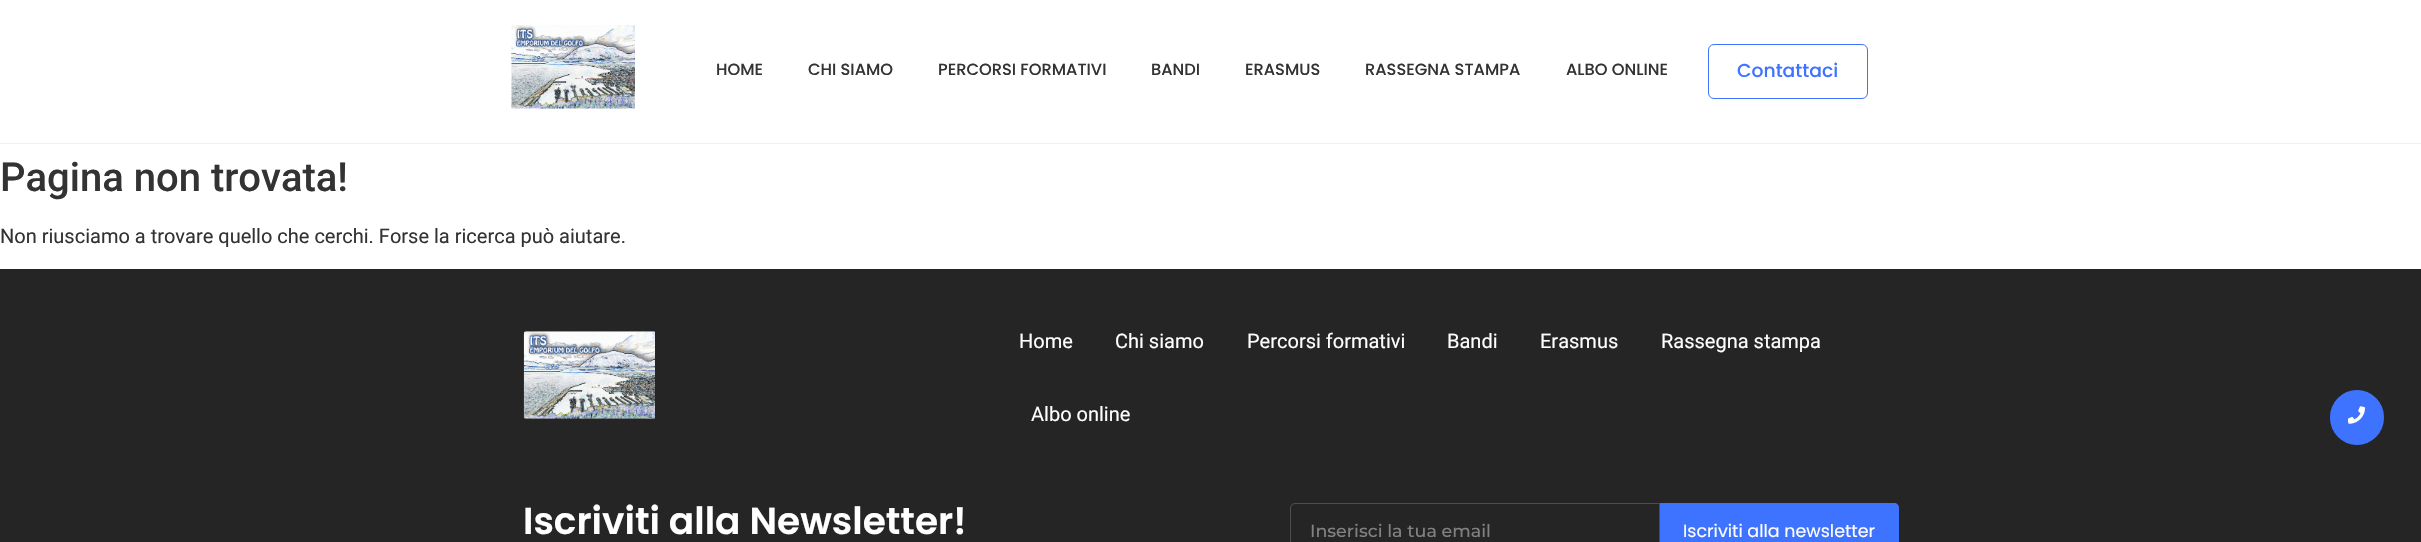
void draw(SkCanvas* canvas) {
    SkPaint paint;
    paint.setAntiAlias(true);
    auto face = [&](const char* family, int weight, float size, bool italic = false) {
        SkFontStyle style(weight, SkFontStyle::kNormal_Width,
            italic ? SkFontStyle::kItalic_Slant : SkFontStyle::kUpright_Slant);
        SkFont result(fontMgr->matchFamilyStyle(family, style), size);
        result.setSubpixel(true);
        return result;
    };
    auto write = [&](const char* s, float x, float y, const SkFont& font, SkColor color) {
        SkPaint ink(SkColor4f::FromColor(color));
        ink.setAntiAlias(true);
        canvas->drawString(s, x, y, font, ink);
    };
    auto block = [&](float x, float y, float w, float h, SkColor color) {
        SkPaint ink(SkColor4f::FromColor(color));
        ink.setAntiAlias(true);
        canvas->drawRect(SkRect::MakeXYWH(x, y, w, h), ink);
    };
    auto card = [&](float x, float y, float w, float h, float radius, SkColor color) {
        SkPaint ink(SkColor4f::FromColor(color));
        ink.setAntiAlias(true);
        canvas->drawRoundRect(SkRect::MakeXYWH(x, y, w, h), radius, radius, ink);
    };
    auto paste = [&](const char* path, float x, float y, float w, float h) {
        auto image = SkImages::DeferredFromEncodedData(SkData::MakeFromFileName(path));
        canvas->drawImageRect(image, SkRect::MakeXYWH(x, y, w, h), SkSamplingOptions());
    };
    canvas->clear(SK_ColorWHITE);
    block(0, 143, 2421, 1, SkColorSetRGB(240, 240, 240));
    paste("pic1.png", 511, 25, 124, 84);
    auto kFont1 = face("Poppins", 500, 16.25f);
    write("HOME", 716, 75, kFont1, SkColorSetRGB(51, 51, 51));
    write("CHI SIAMO", 808, 75, kFont1, SkColorSetRGB(51, 51, 51));
    write("PERCORSI FORMATIVI", 938, 75, kFont1, SkColorSetRGB(51, 51, 51));
    write("BANDI", 1151, 75, kFont1, SkColorSetRGB(51, 51, 51));
    write("ERASMUS", 1245, 75, kFont1, SkColorSetRGB(51, 51, 51));
    write("RASSEGNA STAMPA", 1365, 75, kFont1, SkColorSetRGB(51, 51, 51));
    write("ALBO ONLINE", 1566, 75, kFont1, SkColorSetRGB(51, 51, 51));
    paint.setStyle(SkPaint::kStroke_Style);
    paint.setStrokeWidth(1);
    paint.setColor(SkColorSetRGB(61, 115, 255));
    canvas->drawRoundRect(SkRect::MakeXYWH(1708.5f, 44.5f, 159, 54), 5.5f, 5.5f, paint);
    auto kFont2 = face("Poppins", 500, 18.75f);
    write("Contattaci", 1737, 77, kFont2, SkColorSetRGB(61, 115, 255));
    auto kFont3 = face("Roboto", 500, 40);
    write("Pagina non trovata!", 0, 191, kFont3, SkColorSetRGB(51, 51, 51));
    auto kFont4 = face("Roboto", 400, 20);
    write("Non riusciamo a trovare quello che cerchi. Forse la ricerca può aiutare.", 0, 243, kFont4, SkColorSetRGB(51, 51, 51));
    block(0, 269, 2421, 273, SkColorSetRGB(37, 37, 37));
    paste("pic2.png", 523, 331, 132, 88);
    write("Home", 1019, 348, kFont4, SK_ColorWHITE);
    write("Chi siamo", 1115, 348, kFont4, SK_ColorWHITE);
    write("Percorsi formativi", 1247, 348, kFont4, SK_ColorWHITE);
    write("Bandi", 1447, 348, kFont4, SK_ColorWHITE);
    write("Erasmus", 1540, 348, kFont4, SK_ColorWHITE);
    write("Rassegna stampa", 1661, 348, kFont4, SK_ColorWHITE);
    write("Albo online", 1031, 421, kFont4, SK_ColorWHITE);
    auto kFont5 = face("Poppins", 600, 37.5f);
    write("Iscriviti alla Newsletter!", 523, 534, kFont5, SK_ColorWHITE);
    paint.setColor(SkColorSetRGB(78, 78, 78));
    canvas->drawPath(SkPathBuilder().moveTo(1295, 503.5f).lineTo(1659.5f, 503.5f).lineTo(1659.5f, 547.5f).lineTo(1295, 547.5f).cubicTo(1292.5f, 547.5f, 1290.5f, 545.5f, 1290.5f, 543).lineTo(1290.5f, 508).cubicTo(1290.5f, 505.5f, 1292.5f, 503.5f, 1295, 503.5f).close().detach(), paint);
    auto kFont6 = face("Montserrat", 500, 17.5f);
    write("Inserisci la tua email", 1310, 537, kFont6, SkColorSetRGB(129, 129, 129));
    paint.setStyle(SkPaint::kFill_Style);
    paint.setColor(SkColorSetRGB(61, 115, 255));
    canvas->drawPath(SkPathBuilder().moveTo(1660, 503).lineTo(1894, 503).cubicTo(1897, 503, 1899, 505, 1899, 508).lineTo(1899, 542).cubicTo(1899, 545, 1897, 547, 1894, 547).lineTo(1660, 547).close().detach(), paint);
    auto kFont7 = face("Poppins", 400, 17.5f);
    write("Iscriviti alla newsletter", 1683, 537, kFont7, SK_ColorWHITE);
    card(2330, 390, 54, 55, 27, SkColorSetRGB(61, 115, 255));
    paste("pic3.png", 2348, 406, 17, 18);
}
